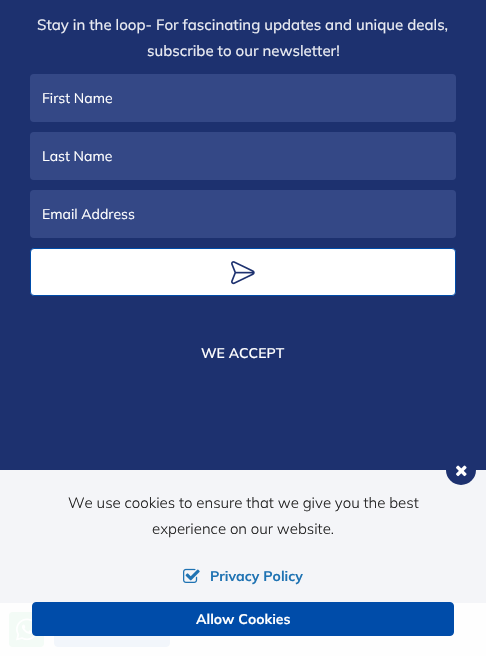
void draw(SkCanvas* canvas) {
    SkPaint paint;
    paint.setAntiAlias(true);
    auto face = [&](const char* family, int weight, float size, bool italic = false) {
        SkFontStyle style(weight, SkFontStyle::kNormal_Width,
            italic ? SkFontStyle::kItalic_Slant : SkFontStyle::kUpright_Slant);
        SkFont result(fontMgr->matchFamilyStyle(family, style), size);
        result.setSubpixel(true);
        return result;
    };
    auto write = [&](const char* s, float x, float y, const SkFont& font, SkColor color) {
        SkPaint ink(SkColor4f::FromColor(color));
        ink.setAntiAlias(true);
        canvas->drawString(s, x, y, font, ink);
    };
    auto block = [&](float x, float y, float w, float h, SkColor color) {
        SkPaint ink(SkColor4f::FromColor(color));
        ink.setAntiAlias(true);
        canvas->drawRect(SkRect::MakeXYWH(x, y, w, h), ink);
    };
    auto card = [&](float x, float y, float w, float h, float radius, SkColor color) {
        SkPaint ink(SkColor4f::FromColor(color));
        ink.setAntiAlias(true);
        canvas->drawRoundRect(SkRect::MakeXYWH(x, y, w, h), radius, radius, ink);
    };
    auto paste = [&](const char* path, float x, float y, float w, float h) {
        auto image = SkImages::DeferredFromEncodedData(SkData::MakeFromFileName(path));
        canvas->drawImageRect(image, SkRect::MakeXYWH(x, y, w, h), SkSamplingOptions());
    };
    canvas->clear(SkColorSetRGB(29, 49, 111));
    block(0, 470, 486, 133, SkColorSetRGB(244, 245, 248));
    auto kFont1 = face("Mulish", 500, 15);
    write("Stay in the loop- For fascinating updates and unique deals,", 37, 30, kFont1, SkColorSetRGB(232, 234, 241));
    write("subscribe to our newsletter!", 147, 56, kFont1, SkColorSetRGB(232, 234, 241));
    card(30, 74, 426, 48, 4, SkColorSetRGB(52, 72, 134));
    auto kFont2 = face("Mulish", 400, 14);
    write("First Name", 42, 103, kFont2, SK_ColorWHITE);
    card(30, 132, 426, 48, 4, SkColorSetRGB(52, 72, 134));
    write("Last Name", 42, 161, kFont2, SK_ColorWHITE);
    card(30, 190, 426, 48, 4, SkColorSetRGB(52, 72, 134));
    write("Email Address", 42, 219, kFont2, SK_ColorWHITE);
    paint.setColor(SK_ColorWHITE);
    canvas->drawRoundRect(SkRect::MakeXYWH(30.5f, 248.5f, 425, 47), 3.5f, 3.5f, paint);
    paint.setStyle(SkPaint::kStroke_Style);
    paint.setStrokeWidth(1);
    paint.setColor(SkColorSetRGB(0, 76, 169));
    canvas->drawRoundRect(SkRect::MakeXYWH(30.5f, 248.5f, 425, 47), 3.5f, 3.5f, paint);
    paste("pic1.png", 231, 261, 24, 24);
    auto kFont3 = face("Mulish", 600, 14);
    write("WE ACCEPT", 201, 358, kFont3, SK_ColorWHITE);
    block(0, 603, 486, 53, SkColorSetRGB(254, 254, 254));
    card(9, 612, 35, 35, 4, SkColorSetRGB(243, 251, 246));
    paste("pic2.png", 16, 618, 20, 23);
    paint.setStyle(SkPaint::kFill_Style);
    paint.setColor(SkColorSetRGB(242, 246, 251));
    canvas->drawRoundRect(SkRect::MakeXYWH(54.5f, 612.5f, 115, 34), 3.5f, 3.5f, paint);
    paint.setStyle(SkPaint::kStroke_Style);
    canvas->drawRoundRect(SkRect::MakeXYWH(54.5f, 612.5f, 115, 34), 3.5f, 3.5f, paint);
    paint.setStyle(SkPaint::kFill_Style);
    paint.setColor(SkColorSetRGB(29, 49, 111));
    canvas->drawCircle(461, 470, 15, paint);
    paste("pic3.png", 456, 465, 11, 12);
    auto kFont4 = face("Mulish", 300, 15);
    write("We use cookies to ensure that we give you the best", 68, 508, kFont4, SkColorSetRGB(34, 34, 34));
    write("experience on our website.", 152, 534, kFont4, SkColorSetRGB(34, 34, 34));
    paste("pic4.png", 183, 568, 17, 15);
    auto kFont5 = face("Mulish", 700, 14);
    write("Privacy Policy", 210, 581, kFont5, SkColorSetRGB(31, 115, 179));
    paint.setColor(SkColorSetRGB(0, 76, 169));
    canvas->drawRoundRect(SkRect::MakeXYWH(32.5f, 602.5f, 421, 33), 3.5f, 3.5f, paint);
    paint.setStyle(SkPaint::kStroke_Style);
    canvas->drawRoundRect(SkRect::MakeXYWH(32.5f, 602.5f, 421, 33), 3.5f, 3.5f, paint);
    write("Allow Cookies", 196, 624, kFont5, SK_ColorWHITE);
}
